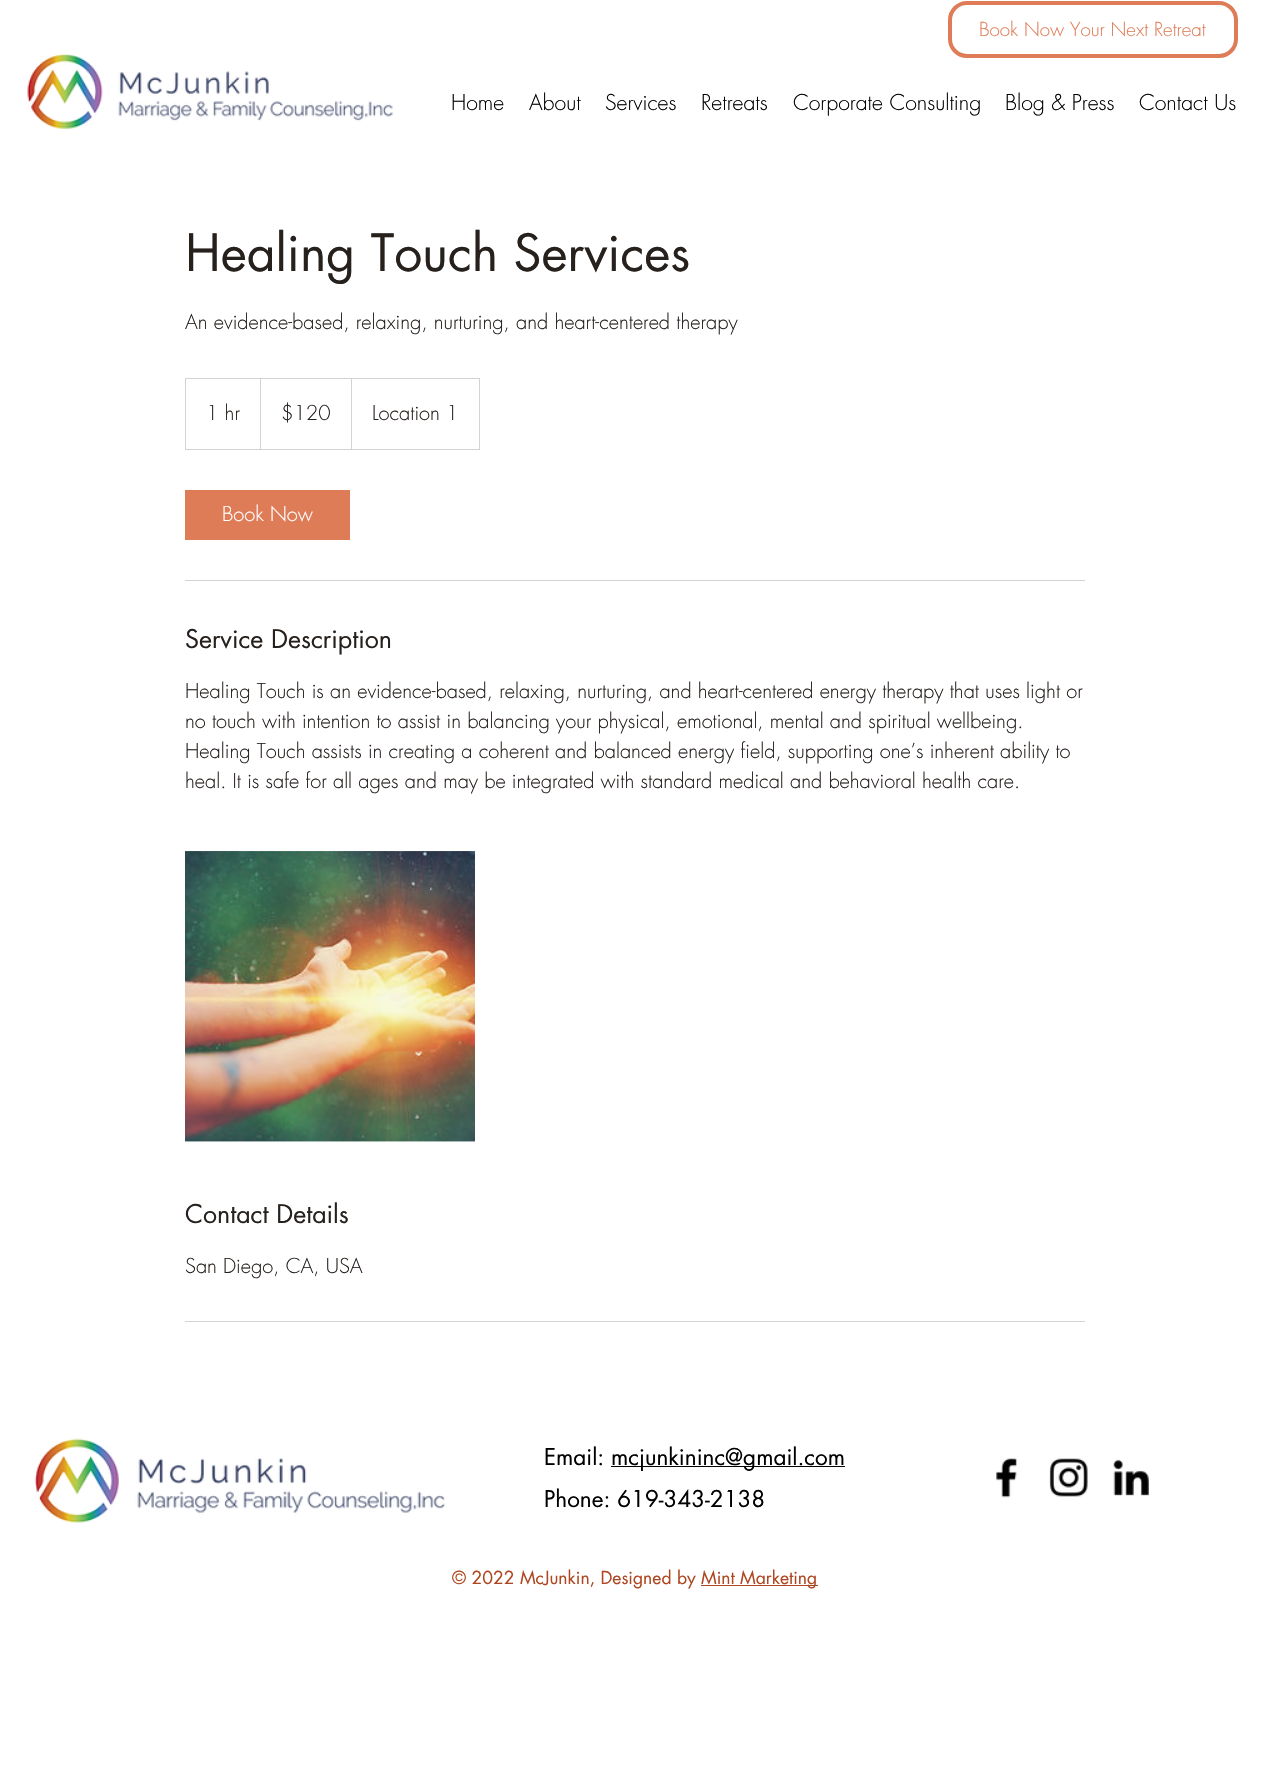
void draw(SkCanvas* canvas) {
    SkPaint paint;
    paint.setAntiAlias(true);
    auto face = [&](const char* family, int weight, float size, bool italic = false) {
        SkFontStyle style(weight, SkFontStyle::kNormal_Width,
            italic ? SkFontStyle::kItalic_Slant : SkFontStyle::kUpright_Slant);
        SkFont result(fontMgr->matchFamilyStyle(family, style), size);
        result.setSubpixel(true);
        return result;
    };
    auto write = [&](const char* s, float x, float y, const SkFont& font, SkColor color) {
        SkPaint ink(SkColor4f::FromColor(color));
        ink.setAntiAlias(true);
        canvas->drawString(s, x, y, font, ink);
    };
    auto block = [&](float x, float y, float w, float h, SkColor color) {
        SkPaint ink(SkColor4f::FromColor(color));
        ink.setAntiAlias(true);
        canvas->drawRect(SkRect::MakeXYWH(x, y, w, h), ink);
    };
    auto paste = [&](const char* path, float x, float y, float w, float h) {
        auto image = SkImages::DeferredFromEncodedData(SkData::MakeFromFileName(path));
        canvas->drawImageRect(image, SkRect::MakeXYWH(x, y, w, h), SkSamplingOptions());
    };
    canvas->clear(SK_ColorWHITE);
    paint.setStyle(SkPaint::kStroke_Style);
    paint.setStrokeWidth(4);
    paint.setColor(SkColorSetRGB(223, 124, 88));
    canvas->drawRoundRect(SkRect::MakeXYWH(950, 3, 286, 53), 17, 17, paint);
    auto kFont1 = face("futura", 300, 18.75f);
    write("Book Now Your Next Retreat", 979, 36, kFont1, SkColorSetRGB(223, 124, 88));
    paste("pic1.png", 27, 53, 366, 76);
    auto kFont2 = face("futura", 300, 21.25f);
    write("Home", 451, 110, kFont2, SK_ColorBLACK);
    write("About", 529, 110, kFont2, SK_ColorBLACK);
    write("Services", 605, 110, kFont2, SK_ColorBLACK);
    write("Retreats", 701, 110, kFont2, SK_ColorBLACK);
    write("Corporate Consulting", 793, 110, kFont2, SK_ColorBLACK);
    write("Blog & Press", 1005, 110, kFont2, SK_ColorBLACK);
    write("Contact Us", 1139, 110, kFont2, SK_ColorBLACK);
    auto kFont3 = face("futura", 400, 50);
    write("Healing Touch Services", 185, 271, kFont3, SkColorSetRGB(39, 33, 30));
    auto kFont4 = face("futura", 300, 20);
    write("An evidence-based, relaxing, nurturing, and heart-centered therapy", 185, 329, kFont4, SkColorSetRGB(39, 33, 30));
    paint.setStrokeWidth(1);
    paint.setColor(SkColorSetRGB(212, 211, 210));
    canvas->drawRect(SkRect::MakeXYWH(185.5f, 378.5f, 294, 71), paint);
    write("1 hr", 206, 420, kFont4, SkColorSetRGB(39, 33, 30));
    paint.setStyle(SkPaint::kFill_Style);
    canvas->drawPath(SkPathBuilder().moveTo(260, 449).lineTo(260, 378).lineTo(261, 379).lineTo(261, 449).close().detach(), paint);
    write("$120", 281, 420, kFont4, SkColorSetRGB(39, 33, 30));
    canvas->drawPath(SkPathBuilder().moveTo(351, 449).lineTo(351, 378).lineTo(352, 379).lineTo(352, 449).close().detach(), paint);
    write("Location 1", 372, 420, kFont4, SkColorSetRGB(39, 33, 30));
    block(185, 490, 165, 50, SkColorSetRGB(223, 124, 88));
    write("Book Now", 222, 521, kFont4, SK_ColorWHITE);
    block(185, 580, 900, 1, SkColorSetRGB(212, 211, 210));
    auto kFont5 = face("futura", 400, 25);
    write("Service Description", 185, 648, kFont5, SkColorSetRGB(39, 33, 30));
    write("Healing Touch is an evidence-based, relaxing, nurturing, and heart-centered energy therapy that uses light or", 185, 698, kFont4, SkColorSetRGB(39, 33, 30));
    write("no touch with intention to assist in balancing your physical, emotional, mental and spiritual wellbeing.", 185, 728, kFont4, SkColorSetRGB(39, 33, 30));
    write("Healing Touch assists in creating a coherent and balanced energy field, supporting one’s inherent ability to", 185, 758, kFont4, SkColorSetRGB(39, 33, 30));
    write("heal. It is safe for all ages and may be integrated with standard medical and behavioral health care.", 185, 788, kFont4, SkColorSetRGB(39, 33, 30));
    paste("pic2.png", 185, 851, 290, 291);
    paste("pic3.png", 185, 851, 290, 291);
    write("Contact Details", 185, 1223, kFont5, SkColorSetRGB(39, 33, 30));
    write("San Diego, CA, USA", 185, 1273, kFont4, SkColorSetRGB(39, 33, 30));
    block(185, 1321, 900, 1, SkColorSetRGB(212, 211, 210));
    paste("pic4.png", 34, 1438, 411, 85);
    auto kFont6 = face("futura", 400, 22.5f);
    write("Email:", 544, 1465, kFont6, SK_ColorBLACK);
    block(611, 1466, 234, 1, SK_ColorBLACK);
    write("mcjunkininc@gmail.com", 611, 1465, kFont6, SK_ColorBLACK);
    write("Phone: 619-343-2138", 544, 1507, kFont6, SK_ColorBLACK);
    paste("pic5.png", 996, 1458, 21, 40);
    paste("pic6.png", 1049, 1458, 39, 39);
    paste("pic7.png", 1113, 1459, 36, 37);
    auto kFont7 = face("futura", 400, 17.5f);
    write("© 2022 McJunkin, Designed by", 452, 1584, kFont7, SkColorSetRGB(174, 71, 33));
    block(701, 1585, 117, 1, SkColorSetRGB(174, 71, 33));
    write("Mint Marketing", 701, 1584, kFont7, SkColorSetRGB(174, 71, 33));
}
